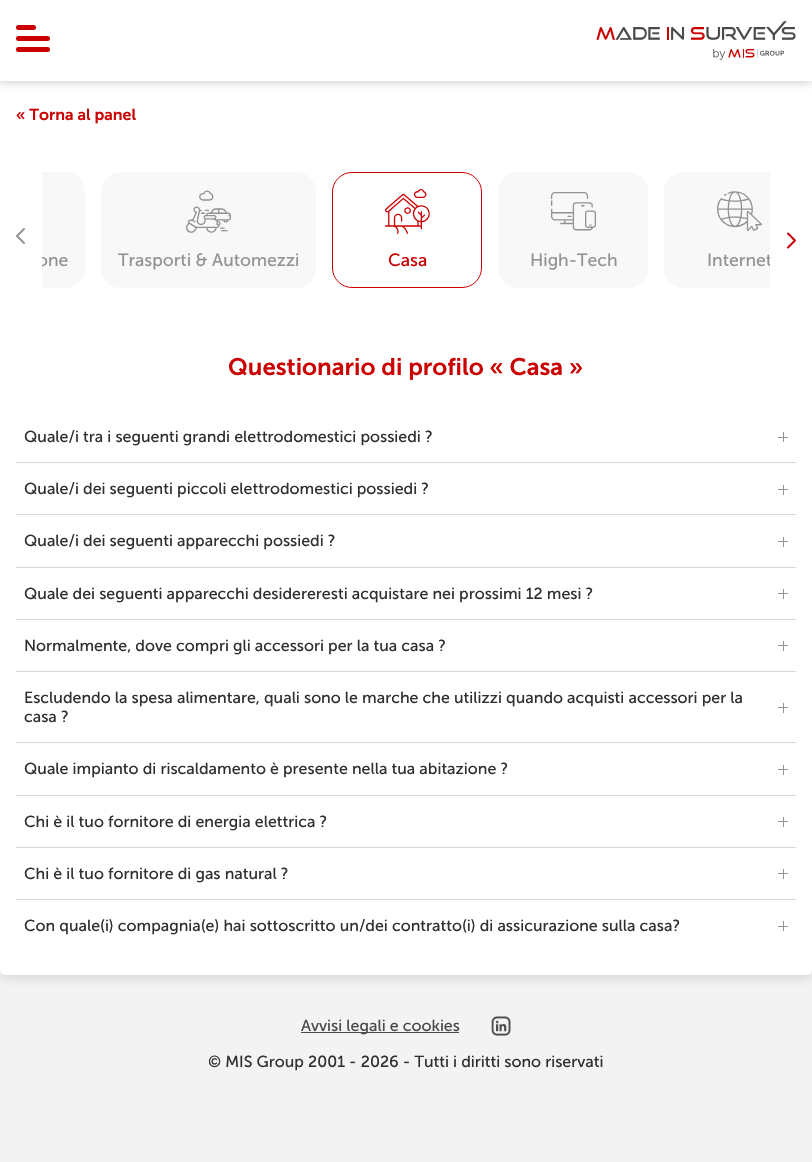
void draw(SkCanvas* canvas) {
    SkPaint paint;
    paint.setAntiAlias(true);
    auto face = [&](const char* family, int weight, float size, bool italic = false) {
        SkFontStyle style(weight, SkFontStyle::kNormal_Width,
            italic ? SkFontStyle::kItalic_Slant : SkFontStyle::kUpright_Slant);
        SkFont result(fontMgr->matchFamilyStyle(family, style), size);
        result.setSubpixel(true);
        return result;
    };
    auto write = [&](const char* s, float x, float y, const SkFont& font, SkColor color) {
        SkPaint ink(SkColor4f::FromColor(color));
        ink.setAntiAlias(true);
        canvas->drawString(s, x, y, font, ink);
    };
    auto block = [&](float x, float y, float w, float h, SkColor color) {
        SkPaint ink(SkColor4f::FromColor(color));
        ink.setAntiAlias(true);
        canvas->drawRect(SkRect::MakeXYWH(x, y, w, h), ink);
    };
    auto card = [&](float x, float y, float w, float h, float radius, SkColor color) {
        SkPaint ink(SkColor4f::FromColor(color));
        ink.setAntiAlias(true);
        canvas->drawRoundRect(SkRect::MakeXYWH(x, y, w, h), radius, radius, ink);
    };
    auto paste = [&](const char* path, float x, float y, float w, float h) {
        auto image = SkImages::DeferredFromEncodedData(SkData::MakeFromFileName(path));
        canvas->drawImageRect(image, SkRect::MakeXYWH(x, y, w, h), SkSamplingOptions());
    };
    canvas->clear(SkColorSetRGB(243, 243, 243));
    paint.setColor(SkColorSetARGB(26, 0, 0, 0));
    paint.setMaskFilter(SkMaskFilter::MakeBlur(kNormal_SkBlurStyle, 5));
    canvas->drawRoundRect(SkRect::MakeXYWH(0, 4, 812, 975), 5, 5, paint);
    paint.setMaskFilter(nullptr);
    card(0, 0, 812, 975, 5, SK_ColorWHITE);
    paint.setColor(SkColorSetARGB(64, 0, 0, 0));
    paint.setMaskFilter(SkMaskFilter::MakeBlur(kNormal_SkBlurStyle, 5));
    canvas->drawRect(SkRect::MakeXYWH(0, 0, 812, 81), paint);
    paint.setMaskFilter(nullptr);
    block(0, 0, 812, 81, SK_ColorWHITE);
    card(16, 25, 20, 5, 2.5f, SkColorSetRGB(203, 1, 1));
    card(16, 36, 34, 5, 2.5f, SkColorSetRGB(203, 1, 1));
    card(16, 47, 34, 5, 2.5f, SkColorSetRGB(203, 1, 1));
    paste("pic1.png", 596, 21, 200, 39);
    auto kFont1 = face("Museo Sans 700", 600, 16);
    write("« Torna al panel", 16, 120, kFont1, SkColorSetRGB(203, 1, 1));
    paint.setStyle(SkPaint::kStroke_Style);
    paint.setStrokeWidth(2);
    paint.setStrokeCap(SkPaint::kRound_Cap);
    paint.setStrokeJoin(SkPaint::kRound_Join);
    paint.setColor(SkColorSetRGB(147, 147, 147));
    canvas->drawPath(SkPathBuilder().moveTo(24, 243).lineTo(17, 236).lineTo(24, 229).detach(), paint);
    paint.setColor(SkColorSetRGB(203, 1, 1));
    canvas->drawPath(SkPathBuilder().moveTo(788, 233.5f).lineTo(795, 240.5f).lineTo(788, 247.5f).detach(), paint);
    paint.setStyle(SkPaint::kFill_Style);
    paint.setColor(SkColorSetRGB(248, 248, 248));
    canvas->drawPath(SkPathBuilder().moveTo(42, 172).lineTo(65, 172).cubicTo(76, 172, 85, 181, 85, 192).lineTo(85, 268).cubicTo(85, 279, 76, 288, 65, 288).lineTo(42, 288).close().detach(), paint);
    canvas->save();
    canvas->clipRect(SkRect::MakeXYWH(42, 250, 26, 21));
    auto kFont2 = face("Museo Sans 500", 400, 17.6f);
    write("one", 37, 266, kFont2, SkColorSetRGB(147, 147, 147));
    canvas->restore();
    card(101, 172, 215, 116, 20, SkColorSetRGB(248, 248, 248));
    paste("pic2.png", 186, 190, 45, 43);
    write("Trasporti & Automezzi", 118, 266, kFont2, SkColorSetRGB(147, 147, 147));
    paint.setStyle(SkPaint::kStroke_Style);
    paint.setStrokeWidth(1);
    paint.setStrokeCap(SkPaint::kButt_Cap);
    paint.setStrokeJoin(SkPaint::kMiter_Join);
    paint.setColor(SkColorSetRGB(203, 1, 1));
    canvas->drawRoundRect(SkRect::MakeXYWH(332.5f, 172.5f, 149, 115), 19.5f, 19.5f, paint);
    paste("pic3.png", 385, 189, 45, 45);
    write("Casa", 388, 266, kFont2, SkColorSetRGB(203, 1, 1));
    card(498, 172, 150, 116, 20, SkColorSetRGB(248, 248, 248));
    paste("pic4.png", 551, 192, 45, 39);
    write("High-Tech", 530, 266, kFont2, SkColorSetRGB(147, 147, 147));
    paint.setStyle(SkPaint::kFill_Style);
    paint.setColor(SkColorSetRGB(248, 248, 248));
    canvas->drawPath(SkPathBuilder().moveTo(684, 172).lineTo(770, 172).lineTo(770, 288).lineTo(684, 288).cubicTo(673, 288, 664, 279, 664, 268).lineTo(664, 192).cubicTo(664, 181, 673, 172, 684, 172).close().detach(), paint);
    paste("pic5.png", 717, 191, 45, 40);
    canvas->save();
    canvas->clipRect(SkRect::MakeXYWH(681, 250, 89, 21));
    write("Internet", 707, 266, kFont2, SkColorSetRGB(147, 147, 147));
    canvas->restore();
    auto kFont3 = face("Museo Sans 700", 600, 24);
    write("Questionario di profilo « Casa »", 228, 375, kFont3, SkColorSetRGB(203, 1, 1));
    block(16, 462, 780, 1, SkColorSetRGB(216, 216, 216));
    auto kFont4 = face("Museo Sans 500", 400, 16);
    write("Quale/i tra i seguenti grandi elettrodomestici possiedi ?", 24, 442, kFont4, SkColorSetRGB(48, 48, 48));
    block(778, 437, 10, 1, SkColorSetRGB(147, 147, 147));
    block(783, 432, 1, 10, SkColorSetRGB(147, 147, 147));
    block(16, 514, 780, 1, SkColorSetRGB(216, 216, 216));
    write("Quale/i dei seguenti piccoli elettrodomestici possiedi ?", 24, 494, kFont4, SkColorSetRGB(48, 48, 48));
    block(778, 489, 10, 1, SkColorSetRGB(147, 147, 147));
    block(783, 485, 1, 10, SkColorSetRGB(147, 147, 147));
    block(16, 567, 780, 1, SkColorSetRGB(216, 216, 216));
    write("Quale/i dei seguenti apparecchi possiedi ?", 24, 546, kFont4, SkColorSetRGB(48, 48, 48));
    block(778, 541, 10, 1, SkColorSetRGB(147, 147, 147));
    block(783, 537, 1, 10, SkColorSetRGB(147, 147, 147));
    block(16, 619, 780, 1, SkColorSetRGB(216, 216, 216));
    write("Quale dei seguenti apparecchi desidereresti acquistare nei prossimi 12 mesi ?", 24, 599, kFont4, SkColorSetRGB(48, 48, 48));
    block(778, 593, 10, 1, SkColorSetRGB(147, 147, 147));
    block(783, 589, 1, 10, SkColorSetRGB(147, 147, 147));
    block(16, 671, 780, 1, SkColorSetRGB(216, 216, 216));
    write("Normalmente, dove compri gli accessori per la tua casa ?", 24, 651, kFont4, SkColorSetRGB(48, 48, 48));
    block(778, 645, 10, 1, SkColorSetRGB(147, 147, 147));
    block(783, 641, 1, 10, SkColorSetRGB(147, 147, 147));
    block(16, 742, 780, 1, SkColorSetRGB(216, 216, 216));
    write("Escludendo la spesa alimentare, quali sono le marche che utilizzi quando acquisti accessori per la", 24, 703, kFont4, SkColorSetRGB(48, 48, 48));
    write("casa ?", 24, 722, kFont4, SkColorSetRGB(48, 48, 48));
    block(778, 707, 10, 1, SkColorSetRGB(147, 147, 147));
    block(783, 703, 1, 10, SkColorSetRGB(147, 147, 147));
    block(16, 795, 780, 1, SkColorSetRGB(216, 216, 216));
    write("Quale impianto di riscaldamento è presente nella tua abitazione ?", 24, 774, kFont4, SkColorSetRGB(48, 48, 48));
    block(778, 769, 10, 1, SkColorSetRGB(147, 147, 147));
    block(783, 765, 1, 10, SkColorSetRGB(147, 147, 147));
    block(16, 847, 780, 1, SkColorSetRGB(216, 216, 216));
    write("Chi è il tuo fornitore di energia elettrica ?", 24, 827, kFont4, SkColorSetRGB(48, 48, 48));
    block(778, 821, 10, 1, SkColorSetRGB(147, 147, 147));
    block(783, 817, 1, 10, SkColorSetRGB(147, 147, 147));
    block(16, 899, 780, 1, SkColorSetRGB(216, 216, 216));
    write("Chi è il tuo fornitore di gas natural ?", 24, 879, kFont4, SkColorSetRGB(48, 48, 48));
    block(778, 873, 10, 1, SkColorSetRGB(147, 147, 147));
    block(783, 869, 1, 10, SkColorSetRGB(147, 147, 147));
    write("Con quale(i) compagnia(e) hai sottoscritto un/dei contratto(i) di assicurazione sulla casa?", 24, 931, kFont4, SkColorSetRGB(48, 48, 48));
    block(778, 926, 10, 1, SkColorSetRGB(147, 147, 147));
    block(783, 921, 1, 10, SkColorSetRGB(147, 147, 147));
    block(301, 1032, 158, 1, SkColorSetRGB(74, 74, 73));
    write("Avvisi legali e cookies", 301, 1031, kFont4, SkColorSetRGB(74, 74, 73));
    paste("pic6.png", 491, 1016, 20, 20);
    write("© MIS Group 2001 - 2026 - Tutti i diritti sono riservati", 208, 1067, kFont4, SkColorSetRGB(48, 48, 48));
}
